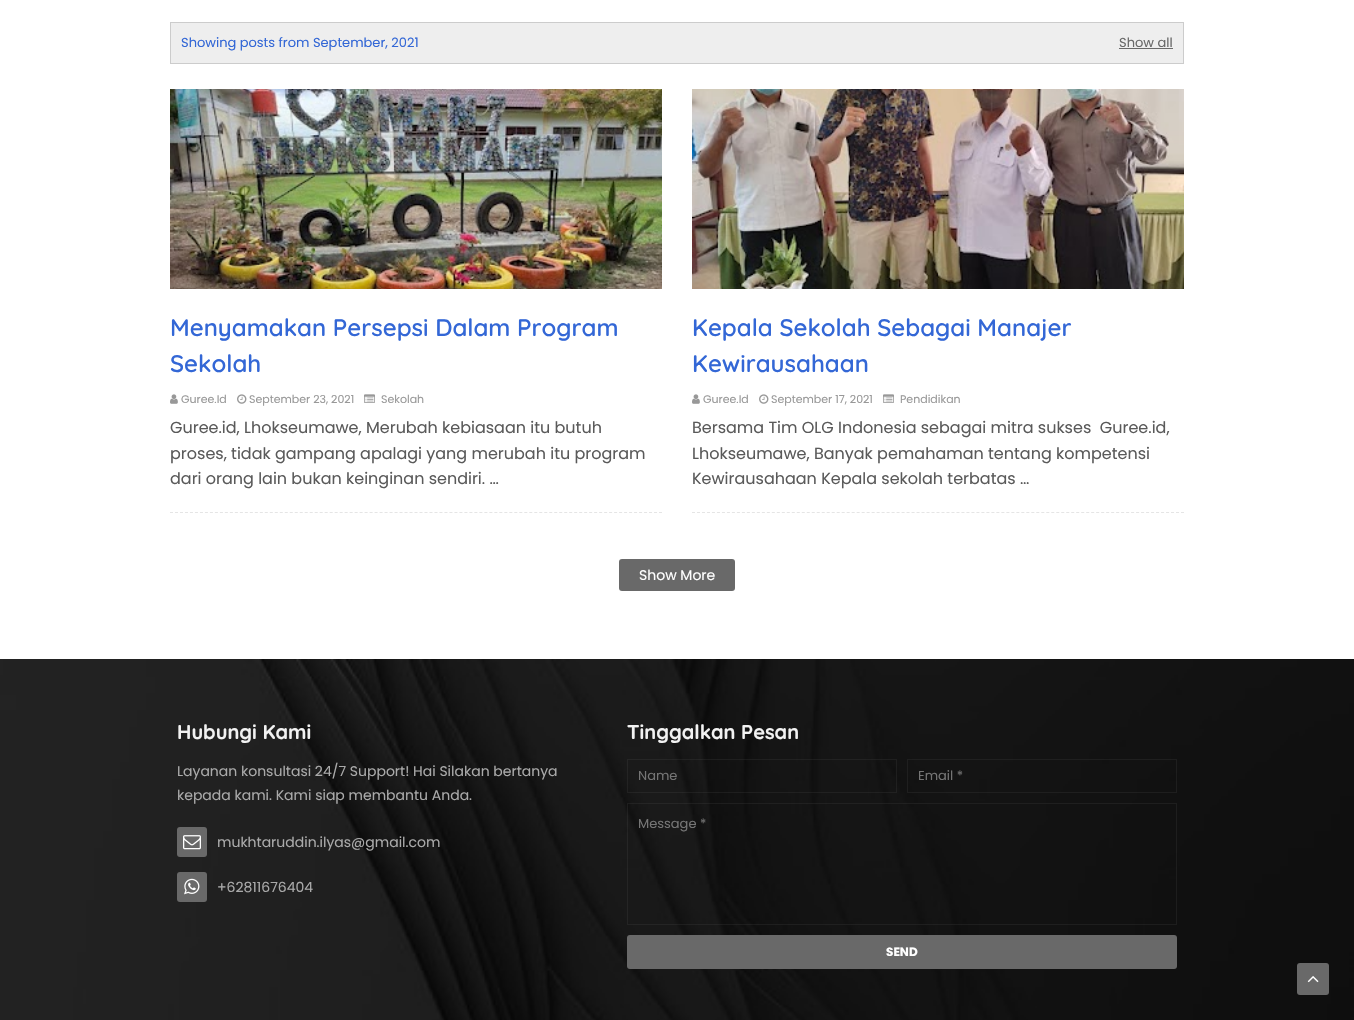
void draw(SkCanvas* canvas) {
    SkPaint paint;
    paint.setAntiAlias(true);
    auto face = [&](const char* family, int weight, float size, bool italic = false) {
        SkFontStyle style(weight, SkFontStyle::kNormal_Width,
            italic ? SkFontStyle::kItalic_Slant : SkFontStyle::kUpright_Slant);
        SkFont result(fontMgr->matchFamilyStyle(family, style), size);
        result.setSubpixel(true);
        return result;
    };
    auto write = [&](const char* s, float x, float y, const SkFont& font, SkColor color) {
        SkPaint ink(SkColor4f::FromColor(color));
        ink.setAntiAlias(true);
        canvas->drawString(s, x, y, font, ink);
    };
    auto block = [&](float x, float y, float w, float h, SkColor color) {
        SkPaint ink(SkColor4f::FromColor(color));
        ink.setAntiAlias(true);
        canvas->drawRect(SkRect::MakeXYWH(x, y, w, h), ink);
    };
    auto card = [&](float x, float y, float w, float h, float radius, SkColor color) {
        SkPaint ink(SkColor4f::FromColor(color));
        ink.setAntiAlias(true);
        canvas->drawRoundRect(SkRect::MakeXYWH(x, y, w, h), radius, radius, ink);
    };
    auto paste = [&](const char* path, float x, float y, float w, float h) {
        auto image = SkImages::DeferredFromEncodedData(SkData::MakeFromFileName(path));
        canvas->drawImageRect(image, SkRect::MakeXYWH(x, y, w, h), SkSamplingOptions());
    };
    canvas->clear(SK_ColorWHITE);
    paint.setColor(SkColorSetRGB(238, 238, 238));
    canvas->drawRect(SkRect::MakeXYWH(170.5f, 22.5f, 1013, 41), paint);
    paint.setStyle(SkPaint::kStroke_Style);
    paint.setStrokeWidth(1);
    paint.setColor(SkColorSetRGB(204, 204, 204));
    canvas->drawRect(SkRect::MakeXYWH(170.5f, 22.5f, 1013, 41), paint);
    auto kFont1 = face("Poppins", 400, 13);
    write("Showing posts from September, 2021", 181, 47, kFont1, SkColorSetRGB(51, 103, 214));
    write("Show all", 1119, 47, kFont1, SkColorSetRGB(105, 105, 105));
    block(1119, 48, 54, 1, SkColorSetRGB(105, 105, 105));
    paste("pic1.png", 170, 89, 492, 200);
    paint.setColor(SkColorSetRGB(229, 229, 229));
    paint.setPathEffect(SkDashPathEffect::Make({{3, 1.99f}}, 0));
    canvas->drawPath(SkPathBuilder().moveTo(170, 512.5f).lineTo(662, 512.5f).detach(), paint);
    paint.setPathEffect(nullptr);
    auto kFont2 = face("Quicksand", 600, 24);
    write("Menyamakan Persepsi Dalam Program", 170, 336, kFont2, SkColorSetRGB(51, 103, 214));
    write("Sekolah", 170, 372, kFont2, SkColorSetRGB(51, 103, 214));
    paste("pic2.png", 170, 394, 8, 10);
    auto kFont3 = face("Poppins", 400, 11);
    write("Guree.Id", 181, 403, kFont3, SkColorSetRGB(152, 152, 152));
    paste("pic3.png", 237, 394, 10, 10);
    write("September 23, 2021", 249, 403, kFont3, SkColorSetRGB(152, 152, 152));
    paste("pic4.png", 364, 394, 11, 9);
    write("Sekolah", 381, 403, kFont3, SkColorSetRGB(152, 152, 152));
    auto kFont4 = face("Poppins", 400, 16);
    write("Guree.id, Lhokseumawe, Merubah kebiasaan itu butuh", 170, 433, kFont4, SkColorSetRGB(90, 90, 90));
    write("proses, tidak gampang apalagi yang merubah itu program", 170, 459, kFont4, SkColorSetRGB(90, 90, 90));
    write("dari orang lain bukan keinginan sendiri. …", 170, 484, kFont4, SkColorSetRGB(90, 90, 90));
    paste("pic5.png", 692, 89, 492, 200);
    paint.setPathEffect(SkDashPathEffect::Make({{3, 1.99f}}, 0));
    canvas->drawPath(SkPathBuilder().moveTo(692, 512.5f).lineTo(1184, 512.5f).detach(), paint);
    paint.setPathEffect(nullptr);
    write("Kepala Sekolah Sebagai Manajer", 692, 336, kFont2, SkColorSetRGB(51, 103, 214));
    write("Kewirausahaan", 692, 372, kFont2, SkColorSetRGB(51, 103, 214));
    paste("pic2.png", 692, 394, 8, 10);
    write("Guree.Id", 703, 403, kFont3, SkColorSetRGB(152, 152, 152));
    paste("pic3.png", 759, 394, 10, 10);
    write("September 17, 2021", 771, 403, kFont3, SkColorSetRGB(152, 152, 152));
    paste("pic4.png", 883, 394, 11, 9);
    write("Pendidikan", 900, 403, kFont3, SkColorSetRGB(152, 152, 152));
    write("Bersama Tim OLG Indonesia sebagai mitra sukses  Guree.id,", 692, 433, kFont4, SkColorSetRGB(90, 90, 90));
    write("Lhokseumawe, Banyak pemahaman tentang kompetensi", 692, 459, kFont4, SkColorSetRGB(90, 90, 90));
    write("Kewirausahaan Kepala sekolah terbatas …", 692, 484, kFont4, SkColorSetRGB(90, 90, 90));
    card(619, 559, 116, 32, 3, SkColorSetRGB(105, 105, 105));
    auto kFont5 = face("Poppins", 400, 14);
    write("Show More", 639, 580, kFont5, SK_ColorWHITE);
    paste("pic6.png", 0, 659, 1354, 361);
    auto kFont6 = face("Quicksand", 700, 20);
    write("Hubungi Kami", 177, 739, kFont6, SkColorSetRGB(242, 242, 242));
    write("Layanan konsultasi 24/7 Support! Hai Silakan bertanya", 177, 776, kFont5, SkColorSetRGB(170, 170, 170));
    write("kepada kami. Kami siap membantu Anda.", 177, 800, kFont5, SkColorSetRGB(170, 170, 170));
    card(177, 827, 30, 30, 3, SkColorSetRGB(105, 105, 105));
    paste("pic7.png", 183, 835, 18, 15);
    write("mukhtaruddin.ilyas@gmail.com", 217, 847, kFont5, SkColorSetRGB(170, 170, 170));
    card(177, 872, 30, 30, 3, SkColorSetRGB(105, 105, 105));
    paste("pic8.png", 184, 878, 16, 17);
    write("+62811676404", 217, 892, kFont5, SkColorSetRGB(170, 170, 170));
    write("Tinggalkan Pesan", 627, 739, kFont6, SkColorSetRGB(242, 242, 242));
    paint.setColor(SkColorSetARGB(13, 255, 255, 255));
    canvas->drawRect(SkRect::MakeXYWH(627.5f, 759.5f, 269, 33), paint);
    write("Name", 638, 780, kFont1, SkColorSetRGB(117, 117, 117));
    canvas->drawRect(SkRect::MakeXYWH(907.5f, 759.5f, 269, 33), paint);
    write("Email *", 918, 780, kFont1, SkColorSetRGB(117, 117, 117));
    canvas->drawRect(SkRect::MakeXYWH(627.5f, 803.5f, 549, 121), paint);
    write("Message *", 638, 828, kFont1, SkColorSetRGB(117, 117, 117));
    card(627, 935, 550, 34, 3, SkColorSetRGB(105, 105, 105));
    auto kFont7 = face("Poppins", 700, 12);
    write("SEND", 886, 956, kFont7, SK_ColorWHITE);
    card(1297, 963, 32, 32, 3, SkColorSetRGB(105, 105, 105));
    paste("pic9.png", 1307, 976, 12, 7);
}
